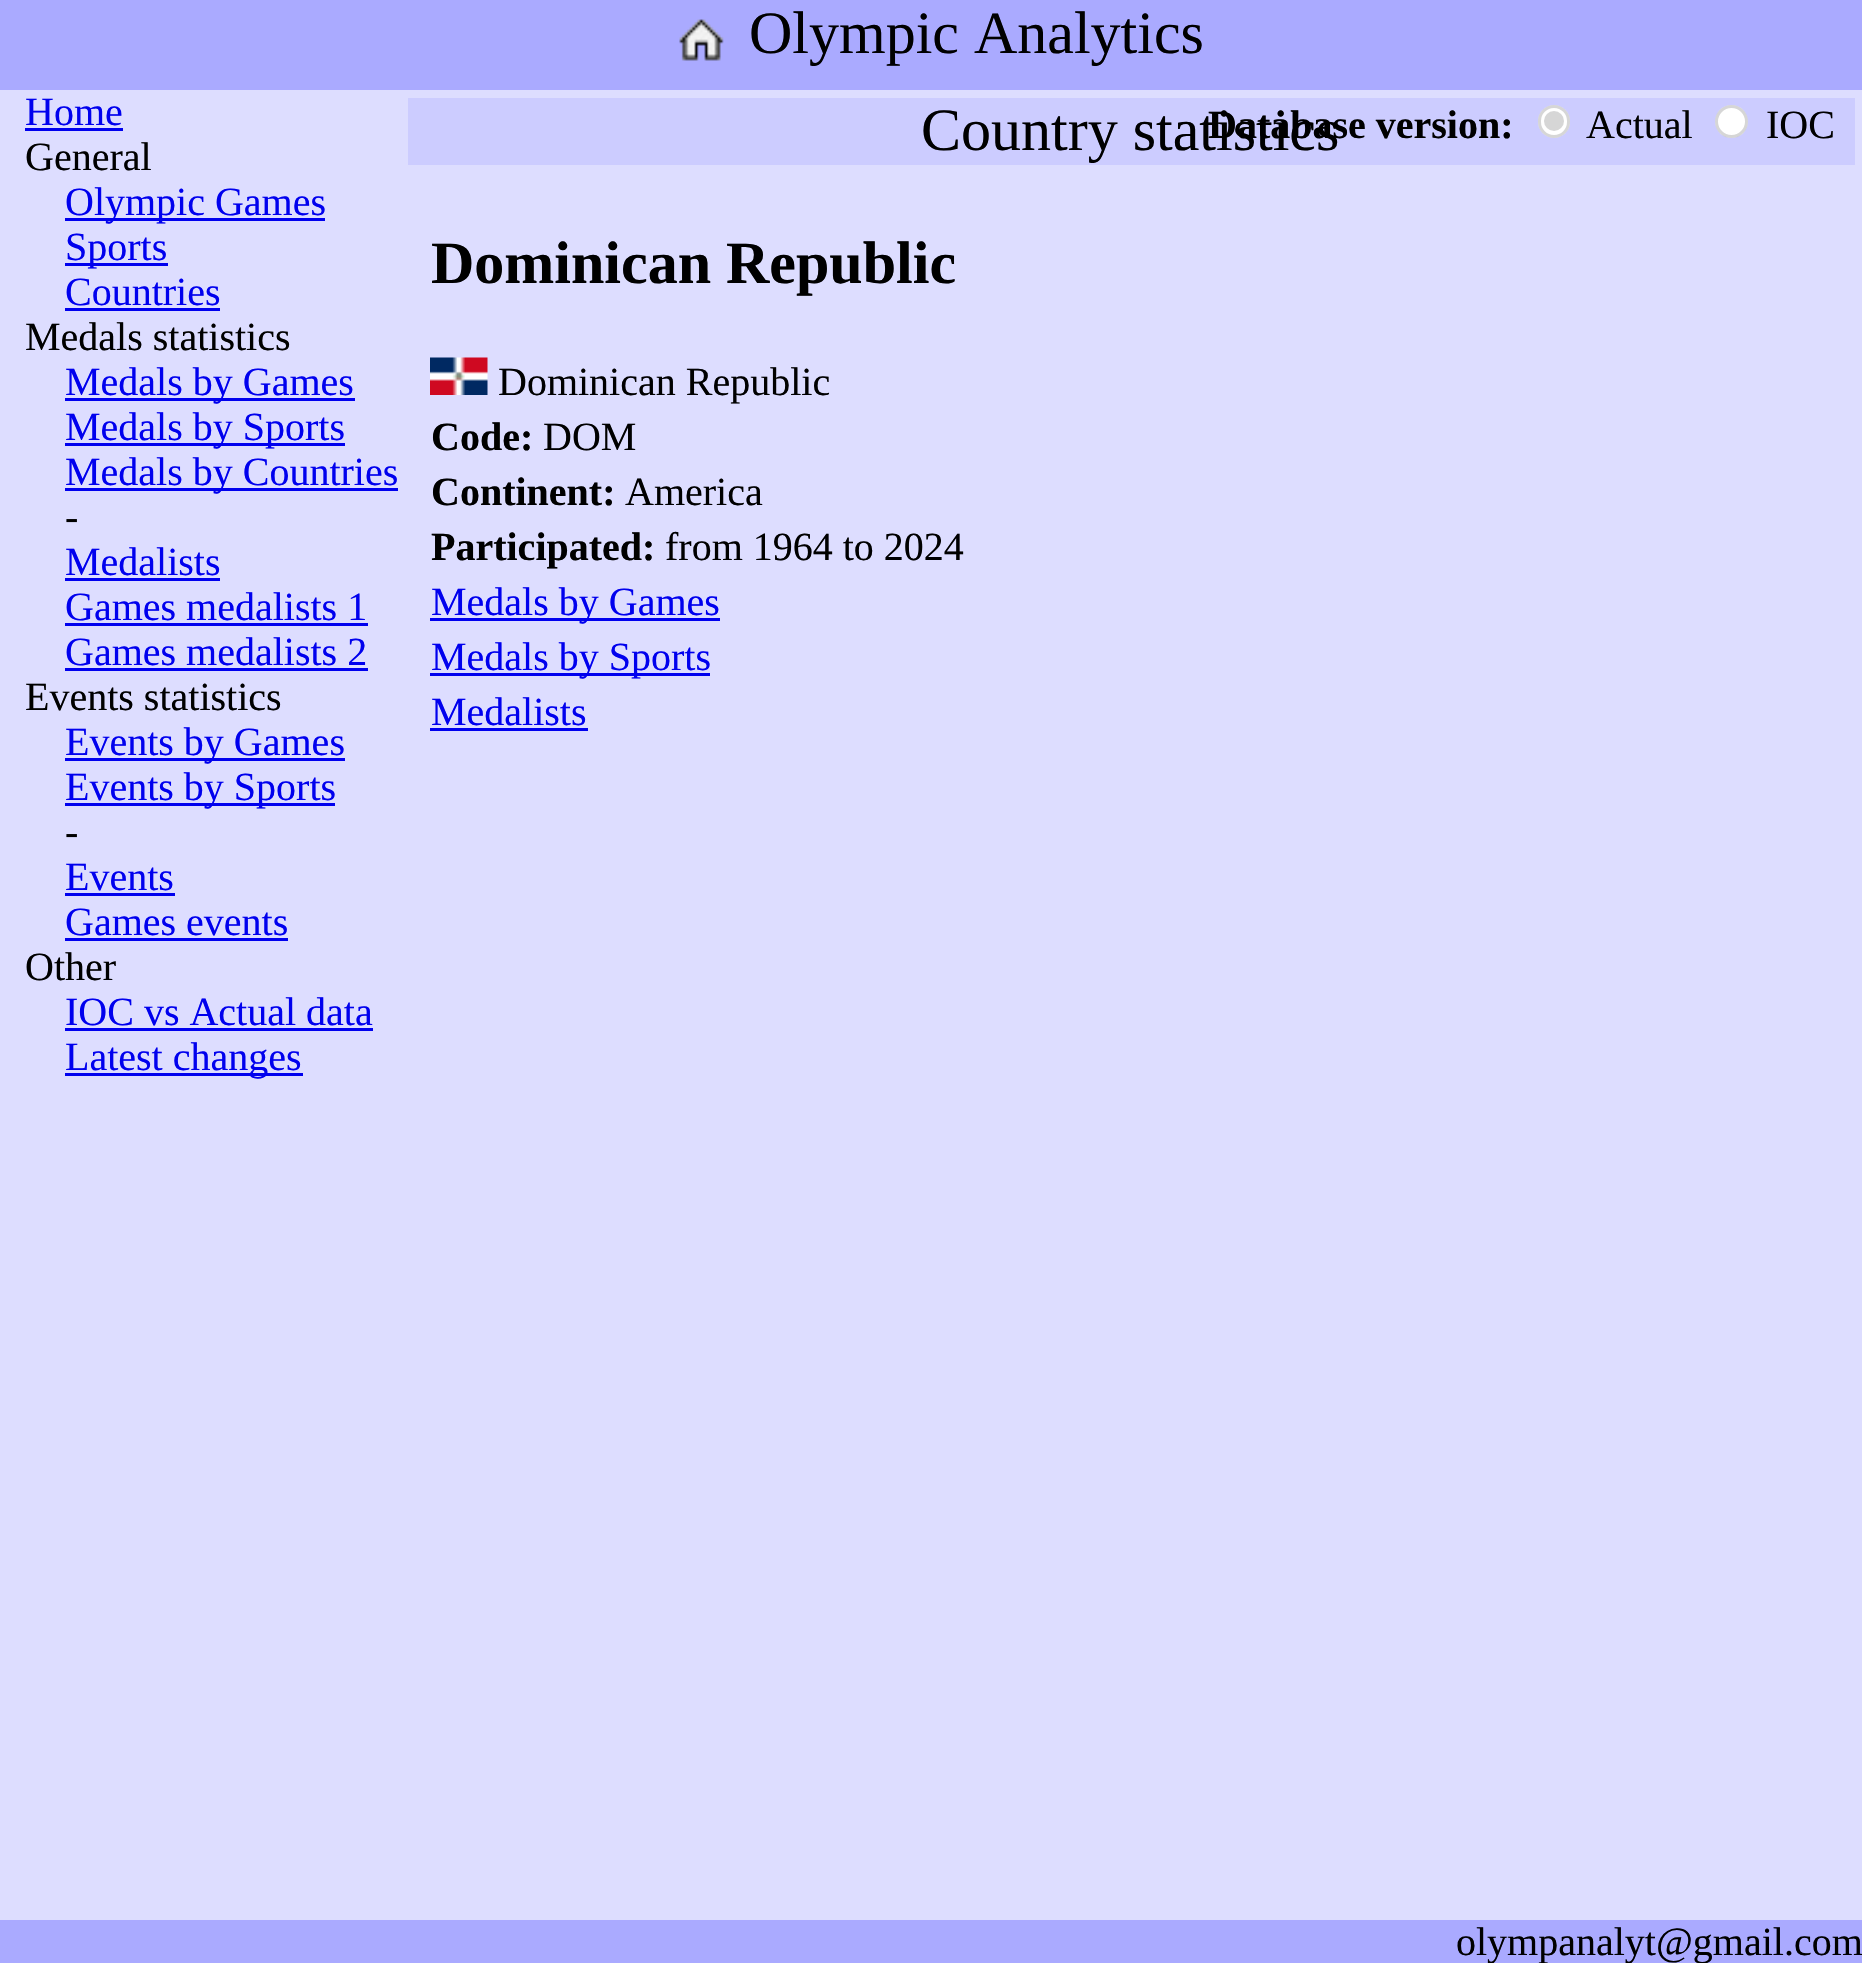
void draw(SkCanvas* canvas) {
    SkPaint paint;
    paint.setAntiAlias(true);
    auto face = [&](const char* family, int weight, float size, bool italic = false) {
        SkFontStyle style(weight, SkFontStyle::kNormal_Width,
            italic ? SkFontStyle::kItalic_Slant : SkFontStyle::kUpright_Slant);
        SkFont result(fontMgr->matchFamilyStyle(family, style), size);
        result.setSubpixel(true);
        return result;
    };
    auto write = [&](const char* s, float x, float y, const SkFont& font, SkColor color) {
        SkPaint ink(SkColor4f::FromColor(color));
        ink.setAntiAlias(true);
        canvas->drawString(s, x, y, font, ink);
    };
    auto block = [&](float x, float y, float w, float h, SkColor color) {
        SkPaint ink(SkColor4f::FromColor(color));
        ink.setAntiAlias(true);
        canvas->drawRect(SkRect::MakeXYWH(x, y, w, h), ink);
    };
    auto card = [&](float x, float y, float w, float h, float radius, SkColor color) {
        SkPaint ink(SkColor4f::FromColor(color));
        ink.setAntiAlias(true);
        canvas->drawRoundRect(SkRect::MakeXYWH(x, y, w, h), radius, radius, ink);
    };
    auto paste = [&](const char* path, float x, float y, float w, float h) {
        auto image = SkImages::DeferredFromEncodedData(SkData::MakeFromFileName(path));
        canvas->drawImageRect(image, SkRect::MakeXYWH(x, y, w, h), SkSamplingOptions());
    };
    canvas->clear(SkColorSetRGB(170, 170, 255));
    paste("pic1.png", 679, 19, 45, 42);
    auto kFont1 = face("Liberation Serif", 400, 60);
    write("Olympic Analytics", 749, 53, kFont1, SK_ColorBLACK);
    block(0, 90, 1862, 1830, SkColorSetRGB(221, 221, 255));
    auto kFont2 = face("Liberation Serif", 400, 40);
    write("Home", 25, 125, kFont2, SkColorSetRGB(0, 0, 238));
    block(25, 128, 98, 3, SkColorSetRGB(0, 0, 238));
    write("General", 25, 170, kFont2, SK_ColorBLACK);
    block(65, 218, 260, 3, SkColorSetRGB(0, 0, 238));
    write("Olympic Games", 65, 215, kFont2, SkColorSetRGB(0, 0, 238));
    block(65, 263, 103, 3, SkColorSetRGB(0, 0, 238));
    write("Sports", 65, 260, kFont2, SkColorSetRGB(0, 0, 238));
    write("Countries", 65, 305, kFont2, SkColorSetRGB(0, 0, 238));
    block(65, 308, 155, 3, SkColorSetRGB(0, 0, 238));
    write("Medals statistics", 25, 350, kFont2, SK_ColorBLACK);
    block(65, 398, 290, 3, SkColorSetRGB(0, 0, 238));
    write("Medals by Games", 65, 395, kFont2, SkColorSetRGB(0, 0, 238));
    block(65, 443, 280, 3, SkColorSetRGB(0, 0, 238));
    write("Medals by Sports", 65, 440, kFont2, SkColorSetRGB(0, 0, 238));
    block(65, 488, 333, 3, SkColorSetRGB(0, 0, 238));
    write("Medals by Countries", 65, 485, kFont2, SkColorSetRGB(0, 0, 238));
    write("-", 65, 530, kFont2, SK_ColorBLACK);
    write("Medalists", 65, 575, kFont2, SkColorSetRGB(0, 0, 238));
    block(65, 578, 155, 3, SkColorSetRGB(0, 0, 238));
    write("Games medalists 1", 65, 620, kFont2, SkColorSetRGB(0, 0, 238));
    block(65, 623, 303, 3, SkColorSetRGB(0, 0, 238));
    write("Games medalists 2", 65, 665, kFont2, SkColorSetRGB(0, 0, 238));
    block(65, 668, 303, 3, SkColorSetRGB(0, 0, 238));
    write("Events statistics", 25, 710, kFont2, SK_ColorBLACK);
    block(65, 758, 280, 3, SkColorSetRGB(0, 0, 238));
    write("Events by Games", 65, 755, kFont2, SkColorSetRGB(0, 0, 238));
    block(65, 803, 270, 3, SkColorSetRGB(0, 0, 238));
    write("Events by Sports", 65, 800, kFont2, SkColorSetRGB(0, 0, 238));
    write("-", 65, 845, kFont2, SK_ColorBLACK);
    write("Events", 65, 890, kFont2, SkColorSetRGB(0, 0, 238));
    block(65, 893, 110, 3, SkColorSetRGB(0, 0, 238));
    write("Games events", 65, 935, kFont2, SkColorSetRGB(0, 0, 238));
    block(65, 938, 223, 3, SkColorSetRGB(0, 0, 238));
    write("Other", 25, 980, kFont2, SK_ColorBLACK);
    write("IOC vs Actual data", 65, 1025, kFont2, SkColorSetRGB(0, 0, 238));
    block(65, 1028, 308, 3, SkColorSetRGB(0, 0, 238));
    block(65, 1073, 238, 3, SkColorSetRGB(0, 0, 238));
    write("Latest changes", 65, 1070, kFont2, SkColorSetRGB(0, 0, 238));
    block(408, 98, 1447, 67, SkColorSetRGB(204, 204, 255));
    write("Country statistics", 921, 150, kFont1, SK_ColorBLACK);
    auto kFont3 = face("Liberation Serif", 700, 40);
    write("Database version:", 1208, 138, kFont3, SK_ColorBLACK);
    card(1538, 105, 32, 33, 16, SK_ColorWHITE);
    paint.setStyle(SkPaint::kStroke_Style);
    paint.setStrokeWidth(3);
    paint.setColor(SkColorSetARGB(77, 118, 118, 118));
    canvas->drawRoundRect(SkRect::MakeXYWH(1539.5f, 106.5f, 29, 30), 14.5f, 14.5f, paint);
    paint.setStyle(SkPaint::kFill_Style);
    paint.setColor(SkColorSetRGB(214, 214, 214));
    canvas->drawCircle(1554, 121, 10, paint);
    write("Actual", 1586, 138, kFont2, SK_ColorBLACK);
    paint.setColor(SK_ColorWHITE);
    canvas->drawCircle(1731.5f, 121.5f, 16.5f, paint);
    paint.setStyle(SkPaint::kStroke_Style);
    paint.setColor(SkColorSetARGB(77, 118, 118, 118));
    canvas->drawCircle(1731.5f, 121.5f, 15, paint);
    write("IOC", 1766, 138, kFont2, SK_ColorBLACK);
    auto kFont4 = face("Liberation Serif", 700, 60);
    write("Dominican Republic", 431, 283, kFont4, SK_ColorBLACK);
    paste("pic2.png", 430, 357, 58, 38);
    write("Dominican Republic", 498, 395, kFont2, SK_ColorBLACK);
    write("Code:", 431, 450, kFont3, SK_ColorBLACK);
    write("DOM", 543, 450, kFont2, SK_ColorBLACK);
    write("Continent:", 431, 505, kFont3, SK_ColorBLACK);
    write("America", 625, 505, kFont2, SK_ColorBLACK);
    write("Participated:", 431, 560, kFont3, SK_ColorBLACK);
    write("from 1964 to 2024", 665, 560, kFont2, SK_ColorBLACK);
    block(430, 618, 290, 3, SkColorSetRGB(0, 0, 238));
    write("Medals by Games", 431, 615, kFont2, SkColorSetRGB(0, 0, 238));
    block(430, 673, 280, 3, SkColorSetRGB(0, 0, 238));
    write("Medals by Sports", 431, 670, kFont2, SkColorSetRGB(0, 0, 238));
    write("Medalists", 431, 725, kFont2, SkColorSetRGB(0, 0, 238));
    block(430, 728, 158, 3, SkColorSetRGB(0, 0, 238));
    write("olympanalyt@gmail.com", 1456, 1955, kFont2, SK_ColorBLACK);
}
